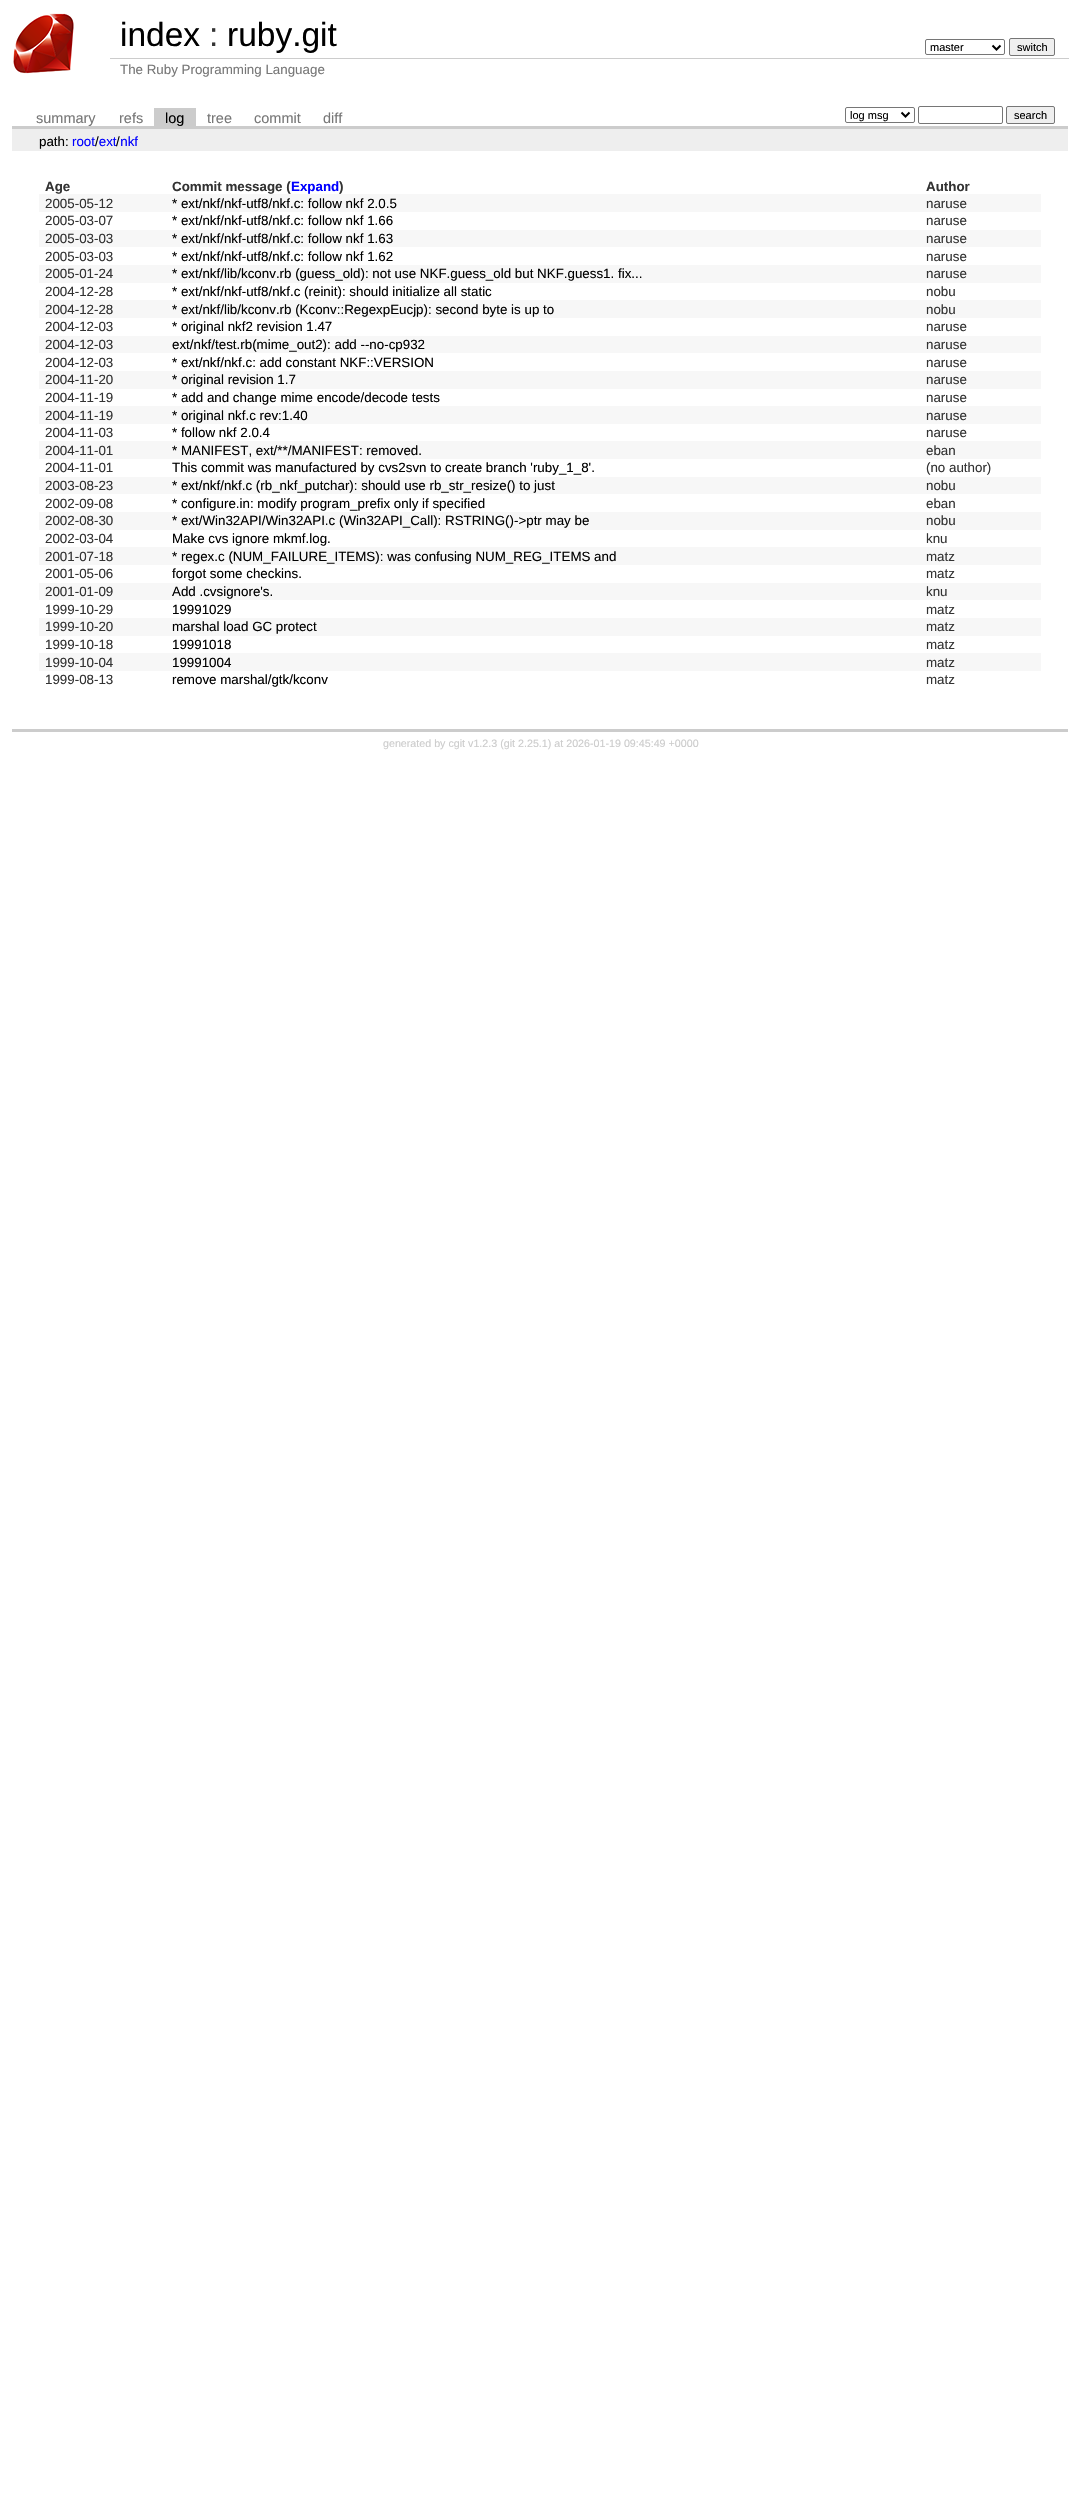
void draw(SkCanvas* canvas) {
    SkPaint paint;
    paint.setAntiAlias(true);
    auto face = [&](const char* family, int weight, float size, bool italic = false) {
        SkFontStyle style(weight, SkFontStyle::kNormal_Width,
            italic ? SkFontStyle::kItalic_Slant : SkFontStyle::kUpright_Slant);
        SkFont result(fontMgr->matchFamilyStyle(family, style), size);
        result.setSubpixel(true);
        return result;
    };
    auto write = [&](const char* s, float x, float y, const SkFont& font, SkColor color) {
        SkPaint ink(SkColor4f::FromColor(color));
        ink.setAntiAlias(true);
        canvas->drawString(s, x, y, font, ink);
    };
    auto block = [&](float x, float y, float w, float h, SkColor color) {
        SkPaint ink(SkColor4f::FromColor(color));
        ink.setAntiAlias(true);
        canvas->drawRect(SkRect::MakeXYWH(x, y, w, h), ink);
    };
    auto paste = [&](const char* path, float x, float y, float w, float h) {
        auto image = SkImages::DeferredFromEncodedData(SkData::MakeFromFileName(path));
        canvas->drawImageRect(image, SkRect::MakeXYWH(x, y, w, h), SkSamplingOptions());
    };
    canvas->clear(SK_ColorWHITE);
    paste("pic1.png", 13, 13, 61, 61);
    auto kFont1 = face("Liberation Sans", 400, 33.5f);
    write("index", 120, 46, kFont1, SK_ColorBLACK);
    write(":", 209, 46, kFont1, SkColorSetRGB(51, 51, 51));
    write("ruby.git", 227, 46, kFont1, SK_ColorBLACK);
    paint.setStyle(SkPaint::kStroke_Style);
    paint.setStrokeWidth(1);
    paint.setColor(SkColorSetRGB(118, 118, 118));
    canvas->drawRoundRect(SkRect::MakeXYWH(925.5f, 39.5f, 79, 15), 1.5f, 1.5f, paint);
    paint.setStrokeWidth(2);
    paint.setColor(SK_ColorBLACK);
    canvas->drawPath(SkPathBuilder().moveTo(992.5f, 45.5f).lineTo(996.5f, 49.5f).lineTo(1000.5f, 45.5f).detach(), paint);
    auto kFont2 = face("Liberation Sans", 400, 11);
    write("master", 930, 51, kFont2, SK_ColorBLACK);
    paint.setStyle(SkPaint::kFill_Style);
    paint.setColor(SkColorSetRGB(239, 239, 239));
    canvas->drawRoundRect(SkRect::MakeXYWH(1009.5f, 38.5f, 45, 17), 1.5f, 1.5f, paint);
    paint.setStyle(SkPaint::kStroke_Style);
    paint.setStrokeWidth(1);
    paint.setColor(SkColorSetRGB(118, 118, 118));
    canvas->drawRoundRect(SkRect::MakeXYWH(1009.5f, 38.5f, 45, 17), 1.5f, 1.5f, paint);
    write("switch", 1017, 51, kFont2, SK_ColorBLACK);
    block(110, 58, 959, 1, SkColorSetRGB(204, 204, 204));
    auto kFont3 = face("Liberation Sans", 400, 13.35f);
    write("The Ruby Programming Language", 120, 74, kFont3, SkColorSetRGB(119, 119, 119));
    block(12, 126, 1056, 3, SkColorSetRGB(204, 204, 204));
    auto kFont4 = face("Liberation Sans", 400, 14.5f);
    write("summary", 36, 123, kFont4, SkColorSetRGB(119, 119, 119));
    write("refs", 119, 123, kFont4, SkColorSetRGB(119, 119, 119));
    block(154, 108, 42, 18, SkColorSetRGB(204, 204, 204));
    write("log", 165, 123, kFont4, SK_ColorBLACK);
    write("tree", 207, 123, kFont4, SkColorSetRGB(119, 119, 119));
    write("commit", 254, 123, kFont4, SkColorSetRGB(119, 119, 119));
    write("diff", 323, 123, kFont4, SkColorSetRGB(119, 119, 119));
    canvas->drawRoundRect(SkRect::MakeXYWH(845.5f, 107.5f, 69, 15), 1.5f, 1.5f, paint);
    paint.setStrokeWidth(2);
    paint.setColor(SK_ColorBLACK);
    canvas->drawPath(SkPathBuilder().moveTo(901.5f, 112.5f).lineTo(905.5f, 116.5f).lineTo(909.5f, 112.5f).detach(), paint);
    write("log msg", 850, 119, kFont2, SK_ColorBLACK);
    paint.setStrokeWidth(1);
    paint.setColor(SkColorSetRGB(118, 118, 118));
    canvas->drawRoundRect(SkRect::MakeXYWH(918.5f, 106.5f, 84, 17), 1.5f, 1.5f, paint);
    paint.setStyle(SkPaint::kFill_Style);
    paint.setColor(SkColorSetRGB(239, 239, 239));
    canvas->drawRoundRect(SkRect::MakeXYWH(1006.5f, 106.5f, 48, 17), 1.5f, 1.5f, paint);
    paint.setStyle(SkPaint::kStroke_Style);
    paint.setColor(SkColorSetRGB(118, 118, 118));
    canvas->drawRoundRect(SkRect::MakeXYWH(1006.5f, 106.5f, 48, 17), 1.5f, 1.5f, paint);
    write("search", 1014, 119, kFont2, SK_ColorBLACK);
    block(12, 129, 1056, 22, SkColorSetRGB(238, 238, 238));
    write("path:", 39, 146, kFont3, SK_ColorBLACK);
    write("root ext nkf", 72, 146, kFont3, SkColorSetRGB(0, 0, 255));
    write("/", 95, 146, kFont3, SK_ColorBLACK);
    write("/", 116, 146, kFont3, SK_ColorBLACK);
    block(12, 729, 1056, 3, SkColorSetRGB(204, 204, 204));
    auto kFont5 = face("Liberation Sans", 700, 13.35f);
    write("Age", 45, 191, kFont5, SkColorSetRGB(51, 51, 51));
    write("Commit message (", 172, 191, kFont5, SkColorSetRGB(51, 51, 51));
    write("Expand", 291, 191, kFont5, SkColorSetRGB(0, 0, 255));
    write(")", 339, 191, kFont5, SkColorSetRGB(51, 51, 51));
    write("Author", 926, 191, kFont5, SkColorSetRGB(51, 51, 51));
    block(39, 194, 1002, 18, SkColorSetRGB(247, 247, 247));
    write("2005-05-12", 45, 208, kFont3, SkColorSetRGB(51, 51, 51));
    write("* ext/nkf/nkf-utf8/nkf.c: follow nkf 2.0.5", 172, 208, kFont3, SK_ColorBLACK);
    write("naruse", 926, 208, kFont3, SkColorSetRGB(51, 51, 51));
    write("2005-03-07", 45, 225, kFont3, SkColorSetRGB(51, 51, 51));
    write("* ext/nkf/nkf-utf8/nkf.c: follow nkf 1.66", 172, 225, kFont3, SK_ColorBLACK);
    write("naruse", 926, 225, kFont3, SkColorSetRGB(51, 51, 51));
    block(39, 230, 1002, 17, SkColorSetRGB(247, 247, 247));
    write("2005-03-03", 45, 243, kFont3, SkColorSetRGB(51, 51, 51));
    write("* ext/nkf/nkf-utf8/nkf.c: follow nkf 1.63", 172, 243, kFont3, SK_ColorBLACK);
    write("naruse", 926, 243, kFont3, SkColorSetRGB(51, 51, 51));
    write("2005-03-03", 45, 261, kFont3, SkColorSetRGB(51, 51, 51));
    write("* ext/nkf/nkf-utf8/nkf.c: follow nkf 1.62", 172, 261, kFont3, SK_ColorBLACK);
    write("naruse", 926, 261, kFont3, SkColorSetRGB(51, 51, 51));
    block(39, 265, 1002, 18, SkColorSetRGB(247, 247, 247));
    write("2005-01-24", 45, 278, kFont3, SkColorSetRGB(51, 51, 51));
    write("* ext/nkf/lib/kconv.rb (guess_old): not use NKF.guess_old but NKF.guess1. fix...", 172, 278, kFont3, SK_ColorBLACK);
    write("naruse", 926, 278, kFont3, SkColorSetRGB(51, 51, 51));
    write("2004-12-28", 45, 296, kFont3, SkColorSetRGB(51, 51, 51));
    write("* ext/nkf/nkf-utf8/nkf.c (reinit): should initialize all static", 172, 296, kFont3, SK_ColorBLACK);
    write("nobu", 926, 296, kFont3, SkColorSetRGB(51, 51, 51));
    block(39, 300, 1002, 18, SkColorSetRGB(247, 247, 247));
    write("2004-12-28", 45, 314, kFont3, SkColorSetRGB(51, 51, 51));
    write("* ext/nkf/lib/kconv.rb (Kconv::RegexpEucjp): second byte is up to", 172, 314, kFont3, SK_ColorBLACK);
    write("nobu", 926, 314, kFont3, SkColorSetRGB(51, 51, 51));
    write("2004-12-03", 45, 331, kFont3, SkColorSetRGB(51, 51, 51));
    write("* original nkf2 revision 1.47", 172, 331, kFont3, SK_ColorBLACK);
    write("naruse", 926, 331, kFont3, SkColorSetRGB(51, 51, 51));
    block(39, 336, 1002, 17, SkColorSetRGB(247, 247, 247));
    write("2004-12-03", 45, 349, kFont3, SkColorSetRGB(51, 51, 51));
    write("ext/nkf/test.rb(mime_out2): add --no-cp932", 172, 349, kFont3, SK_ColorBLACK);
    write("naruse", 926, 349, kFont3, SkColorSetRGB(51, 51, 51));
    write("2004-12-03", 45, 367, kFont3, SkColorSetRGB(51, 51, 51));
    write("* ext/nkf/nkf.c: add constant NKF::VERSION", 172, 367, kFont3, SK_ColorBLACK);
    write("naruse", 926, 367, kFont3, SkColorSetRGB(51, 51, 51));
    block(39, 371, 1002, 18, SkColorSetRGB(247, 247, 247));
    write("2004-11-20", 45, 384, kFont3, SkColorSetRGB(51, 51, 51));
    write("* original revision 1.7", 172, 384, kFont3, SK_ColorBLACK);
    write("naruse", 926, 384, kFont3, SkColorSetRGB(51, 51, 51));
    write("2004-11-19", 45, 402, kFont3, SkColorSetRGB(51, 51, 51));
    write("* add and change mime encode/decode tests", 172, 402, kFont3, SK_ColorBLACK);
    write("naruse", 926, 402, kFont3, SkColorSetRGB(51, 51, 51));
    block(39, 406, 1002, 18, SkColorSetRGB(247, 247, 247));
    write("2004-11-19", 45, 420, kFont3, SkColorSetRGB(51, 51, 51));
    write("* original nkf.c rev:1.40", 172, 420, kFont3, SK_ColorBLACK);
    write("naruse", 926, 420, kFont3, SkColorSetRGB(51, 51, 51));
    write("2004-11-03", 45, 437, kFont3, SkColorSetRGB(51, 51, 51));
    write("* follow nkf 2.0.4", 172, 437, kFont3, SK_ColorBLACK);
    write("naruse", 926, 437, kFont3, SkColorSetRGB(51, 51, 51));
    block(39, 441, 1002, 18, SkColorSetRGB(247, 247, 247));
    write("2004-11-01", 45, 455, kFont3, SkColorSetRGB(51, 51, 51));
    write("* MANIFEST, ext/**/MANIFEST: removed.", 172, 455, kFont3, SK_ColorBLACK);
    write("eban", 926, 455, kFont3, SkColorSetRGB(51, 51, 51));
    write("2004-11-01", 45, 472, kFont3, SkColorSetRGB(51, 51, 51));
    write("This commit was manufactured by cvs2svn to create branch 'ruby_1_8'.", 172, 472, kFont3, SK_ColorBLACK);
    write("(no author)", 926, 472, kFont3, SkColorSetRGB(51, 51, 51));
    block(39, 477, 1002, 17, SkColorSetRGB(247, 247, 247));
    write("2003-08-23", 45, 490, kFont3, SkColorSetRGB(51, 51, 51));
    write("* ext/nkf/nkf.c (rb_nkf_putchar): should use rb_str_resize() to just", 172, 490, kFont3, SK_ColorBLACK);
    write("nobu", 926, 490, kFont3, SkColorSetRGB(51, 51, 51));
    write("2002-09-08", 45, 508, kFont3, SkColorSetRGB(51, 51, 51));
    write("* configure.in: modify program_prefix only if specified", 172, 508, kFont3, SK_ColorBLACK);
    write("eban", 926, 508, kFont3, SkColorSetRGB(51, 51, 51));
    block(39, 512, 1002, 18, SkColorSetRGB(247, 247, 247));
    write("2002-08-30", 45, 525, kFont3, SkColorSetRGB(51, 51, 51));
    write("* ext/Win32API/Win32API.c (Win32API_Call): RSTRING()->ptr may be", 172, 525, kFont3, SK_ColorBLACK);
    write("nobu", 926, 525, kFont3, SkColorSetRGB(51, 51, 51));
    write("2002-03-04", 45, 543, kFont3, SkColorSetRGB(51, 51, 51));
    write("Make cvs ignore mkmf.log.", 172, 543, kFont3, SK_ColorBLACK);
    write("knu", 926, 543, kFont3, SkColorSetRGB(51, 51, 51));
    block(39, 547, 1002, 18, SkColorSetRGB(247, 247, 247));
    write("2001-07-18", 45, 561, kFont3, SkColorSetRGB(51, 51, 51));
    write("* regex.c (NUM_FAILURE_ITEMS): was confusing NUM_REG_ITEMS and", 172, 561, kFont3, SK_ColorBLACK);
    write("matz", 926, 561, kFont3, SkColorSetRGB(51, 51, 51));
    write("2001-05-06", 45, 578, kFont3, SkColorSetRGB(51, 51, 51));
    write("forgot some checkins.", 172, 578, kFont3, SK_ColorBLACK);
    write("matz", 926, 578, kFont3, SkColorSetRGB(51, 51, 51));
    block(39, 583, 1002, 17, SkColorSetRGB(247, 247, 247));
    write("2001-01-09", 45, 596, kFont3, SkColorSetRGB(51, 51, 51));
    write("Add .cvsignore's.", 172, 596, kFont3, SK_ColorBLACK);
    write("knu", 926, 596, kFont3, SkColorSetRGB(51, 51, 51));
    write("1999-10-29", 45, 614, kFont3, SkColorSetRGB(51, 51, 51));
    write("19991029", 172, 614, kFont3, SK_ColorBLACK);
    write("matz", 926, 614, kFont3, SkColorSetRGB(51, 51, 51));
    block(39, 618, 1002, 18, SkColorSetRGB(247, 247, 247));
    write("1999-10-20", 45, 631, kFont3, SkColorSetRGB(51, 51, 51));
    write("marshal load GC protect", 172, 631, kFont3, SK_ColorBLACK);
    write("matz", 926, 631, kFont3, SkColorSetRGB(51, 51, 51));
    write("1999-10-18", 45, 649, kFont3, SkColorSetRGB(51, 51, 51));
    write("19991018", 172, 649, kFont3, SK_ColorBLACK);
    write("matz", 926, 649, kFont3, SkColorSetRGB(51, 51, 51));
    block(39, 653, 1002, 18, SkColorSetRGB(247, 247, 247));
    write("1999-10-04", 45, 667, kFont3, SkColorSetRGB(51, 51, 51));
    write("19991004", 172, 667, kFont3, SK_ColorBLACK);
    write("matz", 926, 667, kFont3, SkColorSetRGB(51, 51, 51));
    write("1999-08-13", 45, 684, kFont3, SkColorSetRGB(51, 51, 51));
    write("remove marshal/gtk/kconv", 172, 684, kFont3, SK_ColorBLACK);
    write("matz", 926, 684, kFont3, SkColorSetRGB(51, 51, 51));
    auto kFont6 = face("Liberation Sans", 400, 10.7f);
    write("generated by cgit v1.2.3 (git 2.25.1) at 2026-01-19 09:45:49 +0000", 383, 747, kFont6, SkColorSetRGB(204, 204, 204));
}
